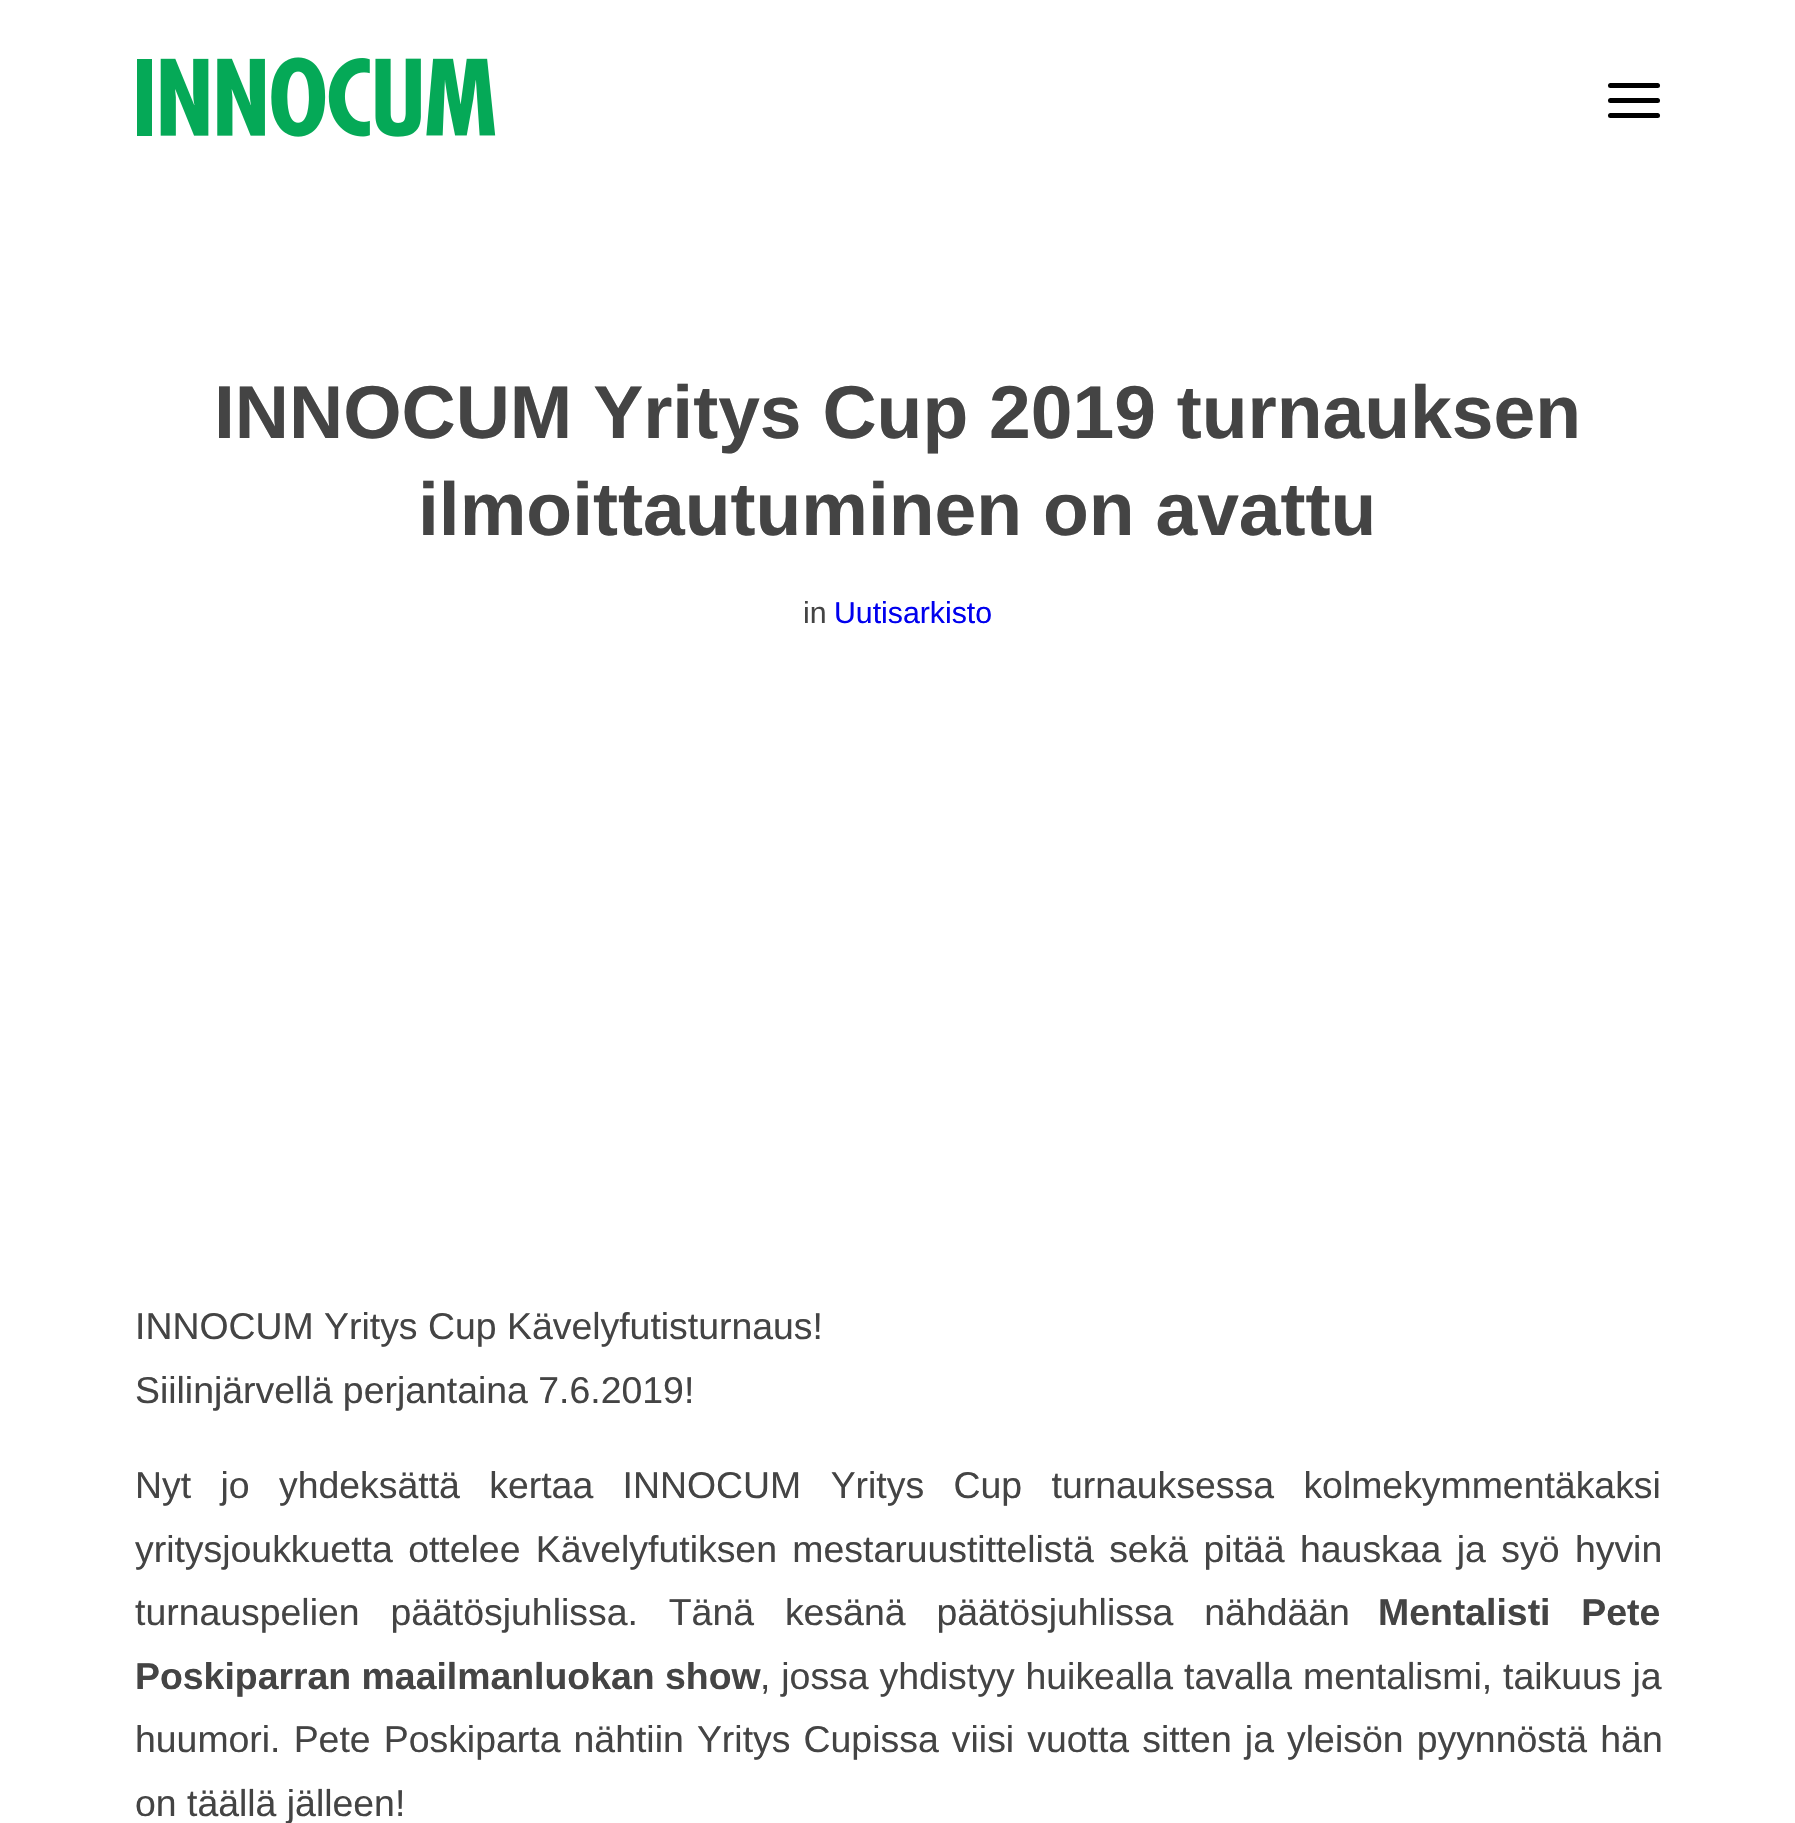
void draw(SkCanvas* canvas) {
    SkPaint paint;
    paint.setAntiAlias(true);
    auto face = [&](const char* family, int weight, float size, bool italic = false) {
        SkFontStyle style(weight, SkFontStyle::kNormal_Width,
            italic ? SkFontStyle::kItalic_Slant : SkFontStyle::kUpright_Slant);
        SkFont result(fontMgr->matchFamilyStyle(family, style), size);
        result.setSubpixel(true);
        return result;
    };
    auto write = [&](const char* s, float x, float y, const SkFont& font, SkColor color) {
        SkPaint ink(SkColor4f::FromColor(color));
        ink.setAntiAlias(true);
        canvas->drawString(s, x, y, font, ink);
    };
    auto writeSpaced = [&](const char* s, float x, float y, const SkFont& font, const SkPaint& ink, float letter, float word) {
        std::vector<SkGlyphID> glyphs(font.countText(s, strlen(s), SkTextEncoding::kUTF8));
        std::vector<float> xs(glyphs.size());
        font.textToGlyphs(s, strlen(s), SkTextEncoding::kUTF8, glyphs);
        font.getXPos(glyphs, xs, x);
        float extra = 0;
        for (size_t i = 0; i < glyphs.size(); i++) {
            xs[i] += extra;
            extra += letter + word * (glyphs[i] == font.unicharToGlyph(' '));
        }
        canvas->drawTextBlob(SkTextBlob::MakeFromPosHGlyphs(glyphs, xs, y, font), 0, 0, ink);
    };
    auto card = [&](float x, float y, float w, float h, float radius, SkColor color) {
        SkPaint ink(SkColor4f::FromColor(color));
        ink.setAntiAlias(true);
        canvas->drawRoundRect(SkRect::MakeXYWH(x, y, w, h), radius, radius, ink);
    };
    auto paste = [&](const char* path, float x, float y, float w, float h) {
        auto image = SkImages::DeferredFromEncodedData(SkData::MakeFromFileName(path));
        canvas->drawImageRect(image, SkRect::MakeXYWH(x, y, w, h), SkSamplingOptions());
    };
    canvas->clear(SK_ColorWHITE);
    paste("pic1.png", 137, 57, 359, 80);
    card(1608, 98, 52, 5, 2.5f, SK_ColorBLACK);
    card(1608, 83, 52, 5, 2.5f, SK_ColorBLACK);
    card(1608, 113, 52, 5, 2.5f, SK_ColorBLACK);
    auto kFont1 = face("Liberation Sans", 700, 75);
    write("INNOCUM Yritys Cup 2019 turnauksen", 214, 438, kFont1, SkColorSetRGB(68, 68, 68));
    write("ilmoittautuminen on avattu", 418, 535, kFont1, SkColorSetRGB(68, 68, 68));
    auto kFont2 = face("Liberation Sans", 400, 30.25f);
    write("in", 803, 623, kFont2, SkColorSetRGB(68, 68, 68));
    write("Uutisarkisto", 834, 623, kFont2, SkColorSetRGB(0, 0, 238));
    auto kFont3 = face("Liberation Sans", 400, 37.4f);
    write("INNOCUM Yritys Cup Kävelyfutisturnaus!", 135, 1339, kFont3, SkColorSetRGB(68, 68, 68));
    write("Siilinjärvellä perjantaina 7.6.2019!", 135, 1403, kFont3, SkColorSetRGB(68, 68, 68));
    paint.setColor(SkColorSetRGB(68, 68, 68));
    writeSpaced("Nyt jo yhdeksättä kertaa INNOCUM Yritys Cup turnauksessa kolmekymmentäkaksi", 135, 1498, kFont3, paint, 0, 19);
    writeSpaced("yritysjoukkuetta ottelee Kävelyfutiksen mestaruustittelistä sekä pitää hauskaa ja syö hyvin", 135, 1562, kFont3, paint, 0, 5);
    writeSpaced("turnauspelien päätösjuhlissa. Tänä kesänä päätösjuhlissa nähdään", 135, 1625, kFont3, paint, 0, 20.5f);
    auto kFont4 = face("Liberation Sans", 700, 37.4f);
    writeSpaced("Mentalisti Pete", 1378, 1625, kFont4, paint, 0, 20.5f);
    write("Poskiparran maailmanluokan show", 135, 1689, kFont4, SkColorSetRGB(68, 68, 68));
    writeSpaced(", jossa yhdistyy huikealla tavalla mentalismi, taikuus ja", 760, 1689, kFont3, paint, 0, 0.5f);
    writeSpaced("huumori. Pete Poskiparta nähtiin Yritys Cupissa viisi vuotta sitten ja yleisön pyynnöstä hän", 135, 1752, kFont3, paint, 0, 2.75f);
    write("on täällä jälleen!", 135, 1816, kFont3, SkColorSetRGB(68, 68, 68));
}
